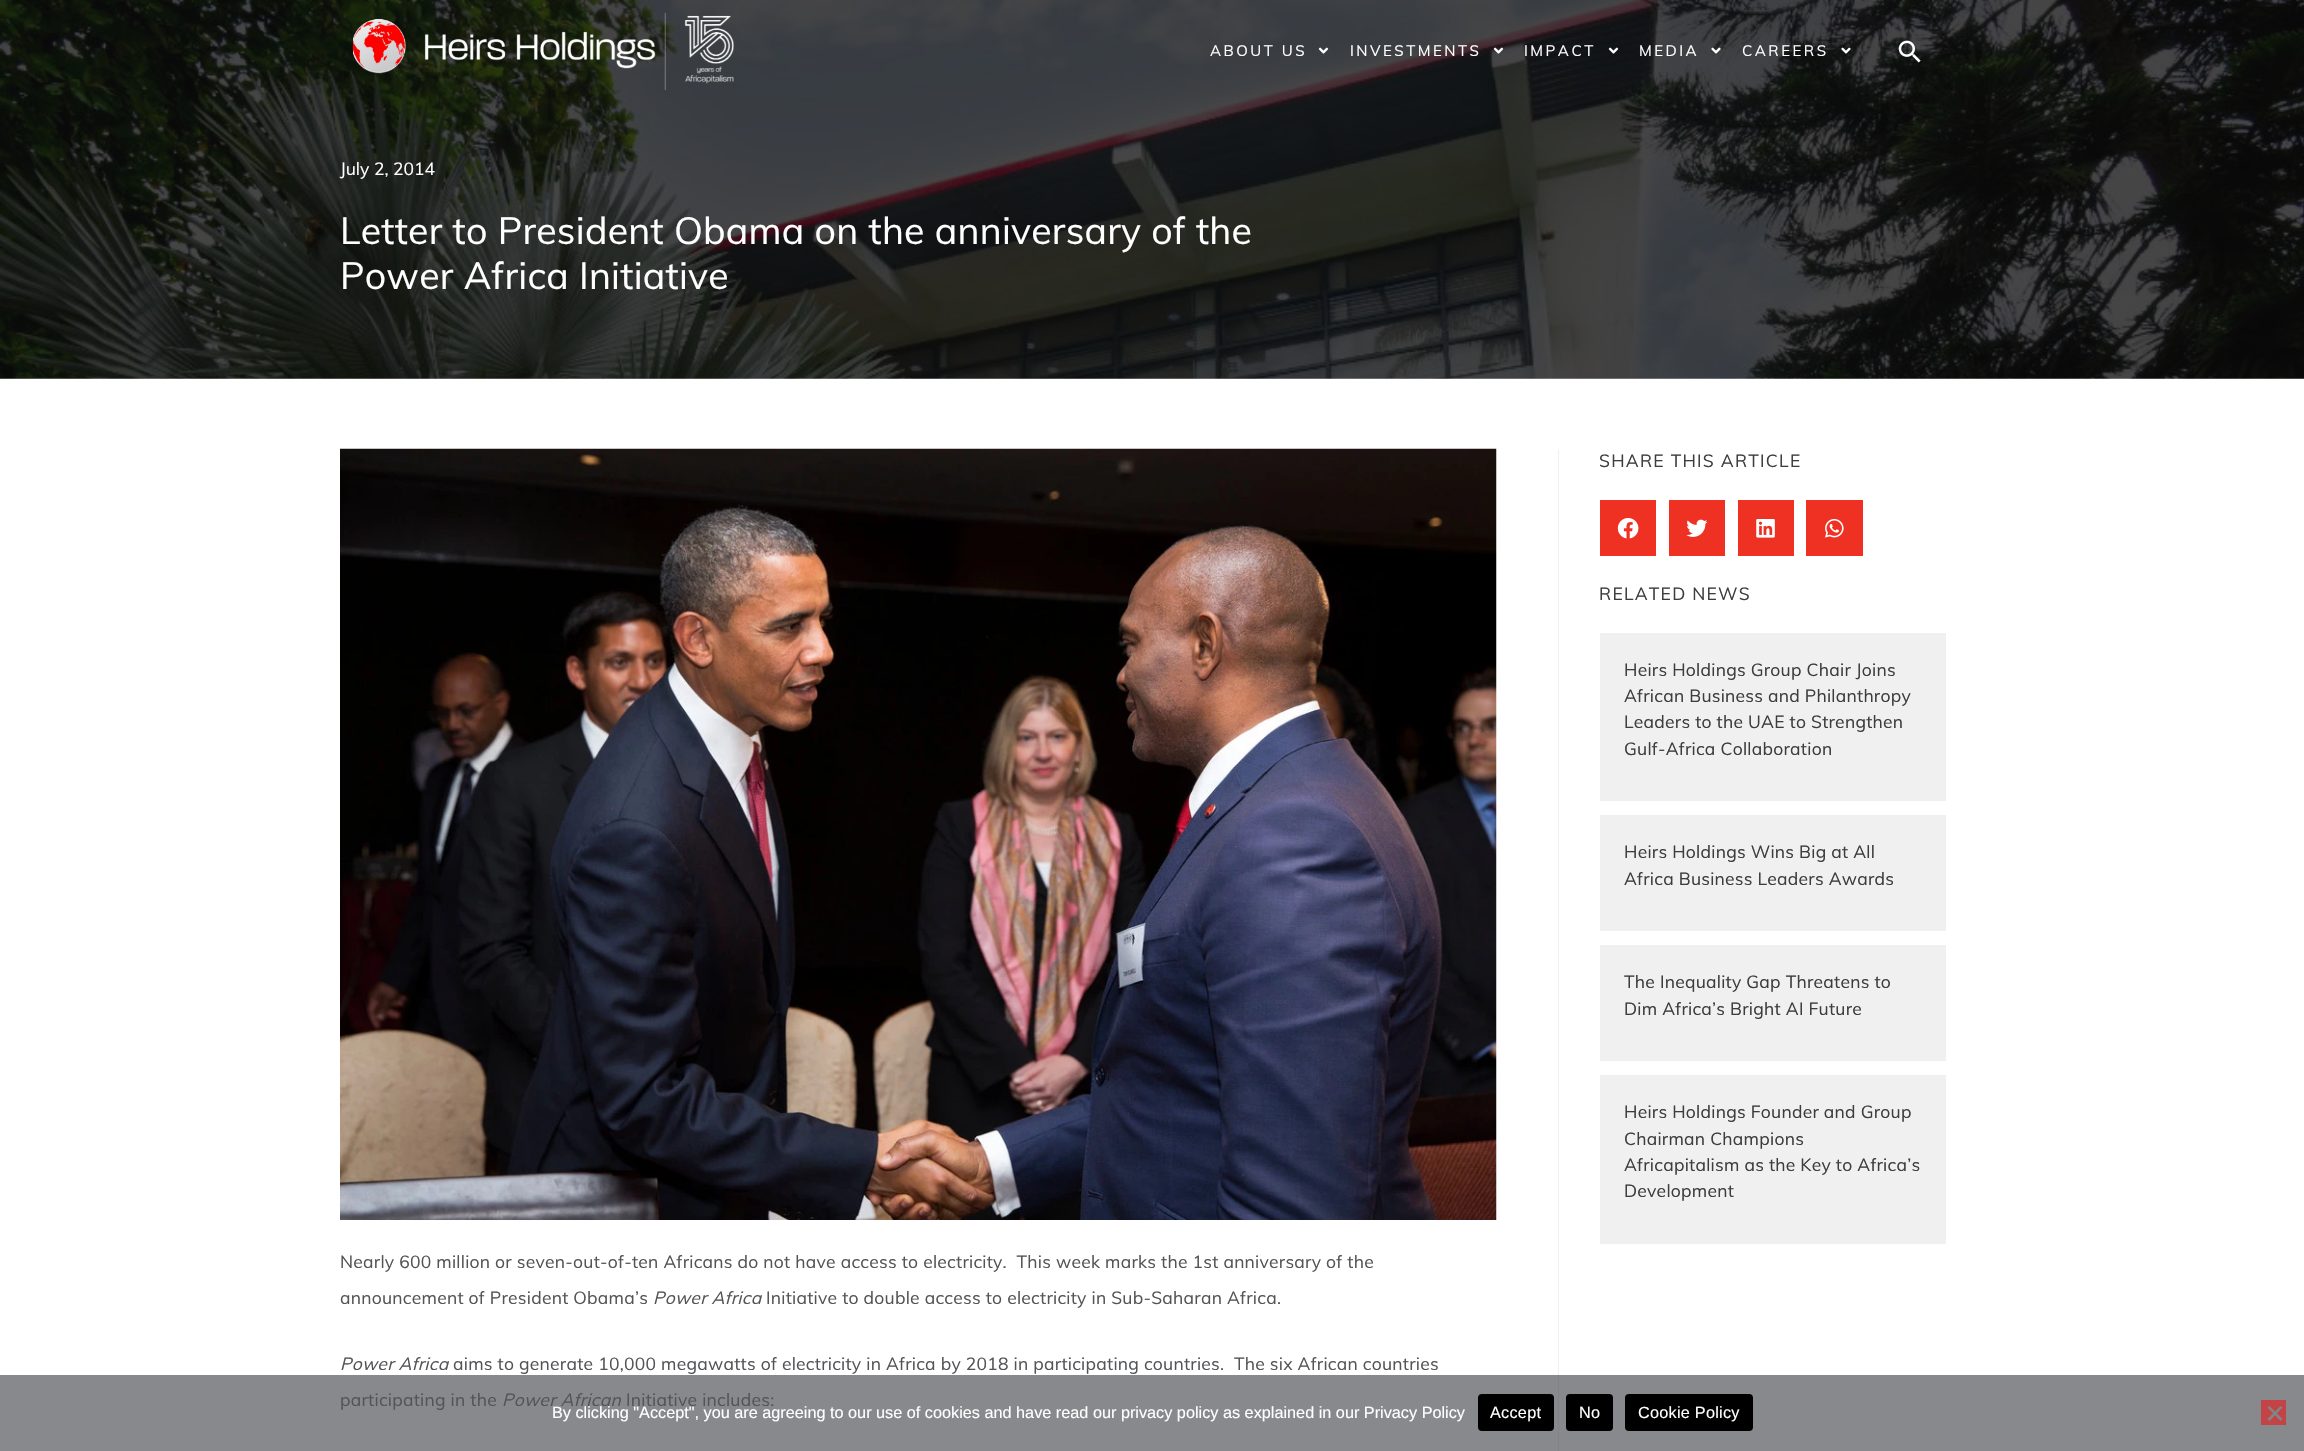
void draw(SkCanvas* canvas) {
    SkPaint paint;
    paint.setAntiAlias(true);
    auto face = [&](const char* family, int weight, float size, bool italic = false) {
        SkFontStyle style(weight, SkFontStyle::kNormal_Width,
            italic ? SkFontStyle::kItalic_Slant : SkFontStyle::kUpright_Slant);
        SkFont result(fontMgr->matchFamilyStyle(family, style), size);
        result.setSubpixel(true);
        return result;
    };
    auto write = [&](const char* s, float x, float y, const SkFont& font, SkColor color) {
        SkPaint ink(SkColor4f::FromColor(color));
        ink.setAntiAlias(true);
        canvas->drawString(s, x, y, font, ink);
    };
    auto writeSpaced = [&](const char* s, float x, float y, const SkFont& font, const SkPaint& ink, float letter, float word) {
        std::vector<SkGlyphID> glyphs(font.countText(s, strlen(s), SkTextEncoding::kUTF8));
        std::vector<float> xs(glyphs.size());
        font.textToGlyphs(s, strlen(s), SkTextEncoding::kUTF8, glyphs);
        font.getXPos(glyphs, xs, x);
        float extra = 0;
        for (size_t i = 0; i < glyphs.size(); i++) {
            xs[i] += extra;
            extra += letter + word * (glyphs[i] == font.unicharToGlyph(' '));
        }
        canvas->drawTextBlob(SkTextBlob::MakeFromPosHGlyphs(glyphs, xs, y, font), 0, 0, ink);
    };
    auto block = [&](float x, float y, float w, float h, SkColor color) {
        SkPaint ink(SkColor4f::FromColor(color));
        ink.setAntiAlias(true);
        canvas->drawRect(SkRect::MakeXYWH(x, y, w, h), ink);
    };
    auto card = [&](float x, float y, float w, float h, float radius, SkColor color) {
        SkPaint ink(SkColor4f::FromColor(color));
        ink.setAntiAlias(true);
        canvas->drawRoundRect(SkRect::MakeXYWH(x, y, w, h), radius, radius, ink);
    };
    auto paste = [&](const char* path, float x, float y, float w, float h) {
        auto image = SkImages::DeferredFromEncodedData(SkData::MakeFromFileName(path));
        canvas->drawImageRect(image, SkRect::MakeXYWH(x, y, w, h), SkSamplingOptions());
    };
    canvas->clear(SK_ColorWHITE);
    paste("pic8.png", 0, 0, 2304, 379);
    paste("pic1.png", 353, 13, 381, 77);
    auto kFont1 = face("Mulish", 400, 15);
    paint.setColor(SK_ColorWHITE);
    writeSpaced("ABOUT US", 1210, 56, kFont1, paint, 2.5f, 0);
    paste("pic2.png", 1318, 47, 11, 7);
    writeSpaced("INVESTMENTS", 1350, 56, kFont1, paint, 2.5f, 0);
    paste("pic3.png", 1493, 47, 11, 7);
    writeSpaced("IMPACT", 1524, 56, kFont1, paint, 2.5f, 0);
    paste("pic4.png", 1608, 47, 11, 7);
    writeSpaced("MEDIA", 1639, 56, kFont1, paint, 2.5f, 0);
    paste("pic5.png", 1711, 47, 10, 7);
    writeSpaced("CAREERS", 1742, 56, kFont1, paint, 2.5f, 0);
    paste("pic6.png", 1841, 47, 10, 7);
    paste("pic7.png", 1898, 40, 23, 23);
    block(0, 1375, 2304, 76, SkColorSetRGB(135, 137, 140));
    auto kFont2 = face("Mulish", 400, 17.5f);
    write("July 2, 2014", 340, 175, kFont2, SK_ColorWHITE);
    auto kFont3 = face("Mulish", 400, 37.5f);
    writeSpaced("Letter to President Obama on the anniversary of the", 340, 244, kFont3, paint, 0.25f, 0);
    writeSpaced("Power Africa Initiative", 340, 289, kFont3, paint, 0.25f, 0);
    paint.setColor(SkColorSetRGB(60, 61, 63));
    writeSpaced("SHARE THIS ARTICLE", 1599, 467, kFont2, paint, 1.25f, 0);
    block(1600, 500, 56, 56, SkColorSetRGB(238, 49, 35));
    paste("pic9.png", 1617, 518, 22, 21);
    block(1669, 500, 56, 56, SkColorSetRGB(238, 49, 35));
    paste("pic10.png", 1686, 519, 22, 18);
    block(1738, 500, 56, 56, SkColorSetRGB(238, 49, 35));
    paste("pic11.png", 1756, 519, 19, 19);
    block(1806, 500, 57, 56, SkColorSetRGB(238, 49, 35));
    paste("pic12.png", 1825, 519, 19, 19);
    writeSpaced("RELATED NEWS", 1599, 600, kFont2, paint, 1.25f, 0);
    block(1600, 633, 346, 168, SkColorSetRGB(240, 240, 240));
    writeSpaced("Heirs Holdings Group Chair Joins", 1624, 676, kFont2, paint, 0.25f, 0);
    writeSpaced("African Business and Philanthropy", 1624, 702, kFont2, paint, 0.25f, 0);
    writeSpaced("Leaders to the UAE to Strengthen", 1624, 728, kFont2, paint, 0.25f, 0);
    writeSpaced("Gulf-Africa Collaboration", 1624, 755, kFont2, paint, 0.25f, 0);
    block(1600, 815, 346, 116, SkColorSetRGB(240, 240, 240));
    writeSpaced("Heirs Holdings Wins Big at All", 1624, 858, kFont2, paint, 0.25f, 0);
    writeSpaced("Africa Business Leaders Awards", 1624, 885, kFont2, paint, 0.25f, 0);
    block(1600, 945, 346, 116, SkColorSetRGB(240, 240, 240));
    writeSpaced("The Inequality Gap Threatens to", 1624, 988, kFont2, paint, 0.25f, 0);
    writeSpaced("Dim Africa’s Bright AI Future", 1624, 1015, kFont2, paint, 0.25f, 0);
    block(1600, 1075, 346, 169, SkColorSetRGB(240, 240, 240));
    writeSpaced("Heirs Holdings Founder and Group", 1624, 1118, kFont2, paint, 0.25f, 0);
    writeSpaced("Chairman Champions", 1624, 1145, kFont2, paint, 0.25f, 0);
    writeSpaced("Africapitalism as the Key to Africa’s", 1624, 1171, kFont2, paint, 0.25f, 0);
    writeSpaced("Development", 1624, 1197, kFont2, paint, 0.25f, 0);
    block(1558, 449, 1, 926, SkColorSetRGB(240, 240, 240));
    block(1558, 1375, 1, 76, SkColorSetRGB(130, 132, 135));
    paste("pic13.png", 340, 448, 1157, 772);
    paint.setColor(SkColorSetRGB(82, 84, 86));
    writeSpaced("Nearly 600 million or seven-out-of-ten Africans do not have access to electricity.  This week marks the 1st anniversary of the", 340, 1268, kFont2, paint, 0.25f, 0);
    writeSpaced("announcement of President Obama’s", 340, 1304, kFont2, paint, 0.25f, 0);
    auto kFont4 = face("Mulish", 400, 17.5f, true);
    writeSpaced("Power Africa", 653, 1304, kFont4, paint, 0.25f, 0);
    writeSpaced("Initiative to double access to electricity in Sub-Saharan Africa.", 766, 1304, kFont2, paint, 0.25f, 0);
    writeSpaced("Power Africa", 340, 1370, kFont4, paint, 0.25f, 0);
    writeSpaced("aims to generate 10,000 megawatts of electricity in Africa by 2018 in participating countries.  The six African countries", 453, 1370, kFont2, paint, 0.25f, 0);
    writeSpaced("participating in the", 340, 1406, kFont2, paint, 0.25f, 0);
    writeSpaced("Power African", 502, 1406, kFont4, paint, 0.25f, 0);
    writeSpaced("Initiative includes:", 626, 1406, kFont2, paint, 0.25f, 0);
    auto kFont5 = face("Liberation Sans", 400, 16.25f);
    write("By clicking \"Accept\", you are agreeing to our use of cookies and have read our privacy policy as explained in our Privacy Policy", 552, 1418, kFont5, SK_ColorWHITE);
    card(1478, 1394, 76, 37, 4, SK_ColorBLACK);
    paint.setColor(SK_ColorWHITE);
    writeSpaced("Accept", 1490, 1418, kFont5, paint, 0.25f, 0);
    card(1566, 1394, 47, 37, 4, SK_ColorBLACK);
    writeSpaced("No", 1579, 1418, kFont5, paint, 0.25f, 0);
    card(1625, 1394, 128, 37, 4, SK_ColorBLACK);
    writeSpaced("Cookie Policy", 1638, 1418, kFont5, paint, 0.25f, 0);
    block(2261, 1400, 25, 25, SkColorSetRGB(194, 68, 70));
    paint.setColor(SkColorSetRGB(131, 132, 134));
    canvas->drawPath(SkPathBuilder().moveTo(2280.5f, 1406).lineTo(2282.5f, 1407.5f).lineTo(2269.5f, 1421).lineTo(2267.5f, 1419).close().detach(), paint);
    canvas->drawPath(SkPathBuilder().moveTo(2267.5f, 1407.5f).lineTo(2269.5f, 1406).lineTo(2282.5f, 1419).lineTo(2280.5f, 1421).close().detach(), paint);
}
